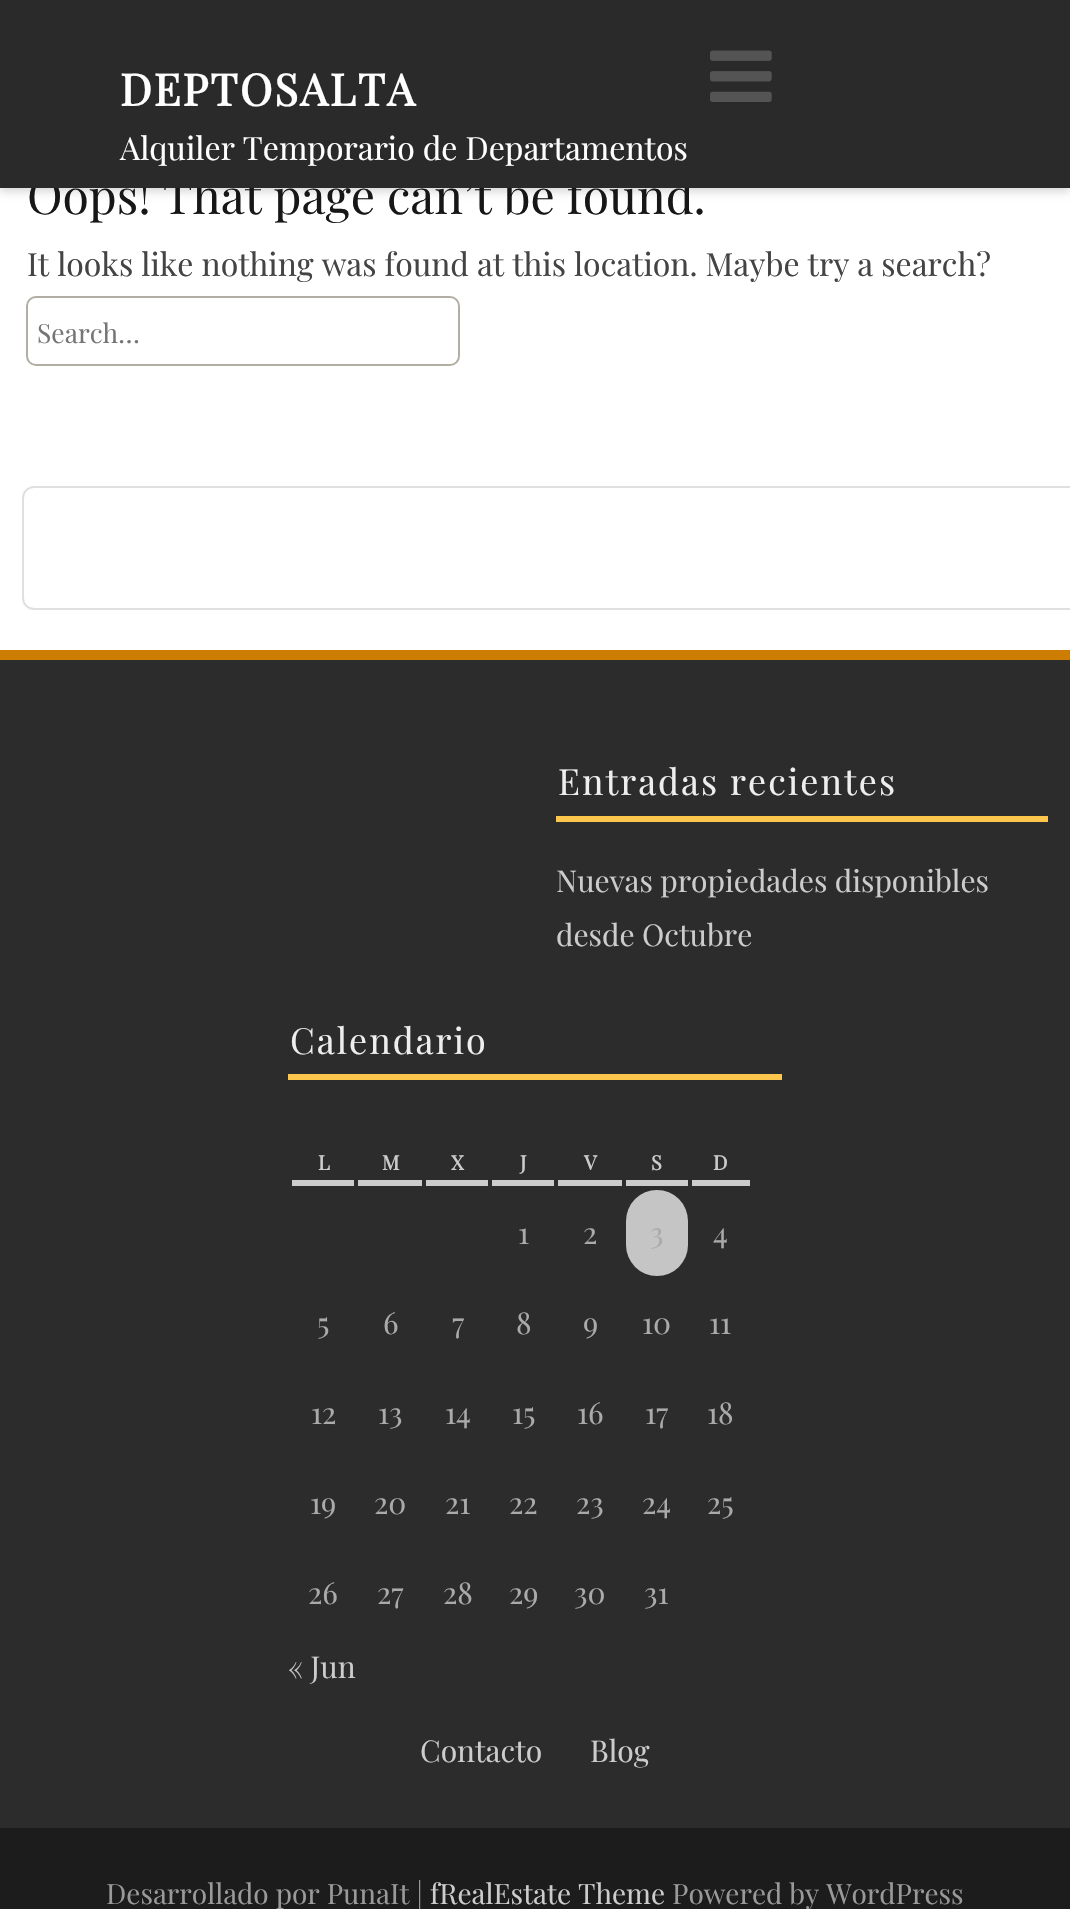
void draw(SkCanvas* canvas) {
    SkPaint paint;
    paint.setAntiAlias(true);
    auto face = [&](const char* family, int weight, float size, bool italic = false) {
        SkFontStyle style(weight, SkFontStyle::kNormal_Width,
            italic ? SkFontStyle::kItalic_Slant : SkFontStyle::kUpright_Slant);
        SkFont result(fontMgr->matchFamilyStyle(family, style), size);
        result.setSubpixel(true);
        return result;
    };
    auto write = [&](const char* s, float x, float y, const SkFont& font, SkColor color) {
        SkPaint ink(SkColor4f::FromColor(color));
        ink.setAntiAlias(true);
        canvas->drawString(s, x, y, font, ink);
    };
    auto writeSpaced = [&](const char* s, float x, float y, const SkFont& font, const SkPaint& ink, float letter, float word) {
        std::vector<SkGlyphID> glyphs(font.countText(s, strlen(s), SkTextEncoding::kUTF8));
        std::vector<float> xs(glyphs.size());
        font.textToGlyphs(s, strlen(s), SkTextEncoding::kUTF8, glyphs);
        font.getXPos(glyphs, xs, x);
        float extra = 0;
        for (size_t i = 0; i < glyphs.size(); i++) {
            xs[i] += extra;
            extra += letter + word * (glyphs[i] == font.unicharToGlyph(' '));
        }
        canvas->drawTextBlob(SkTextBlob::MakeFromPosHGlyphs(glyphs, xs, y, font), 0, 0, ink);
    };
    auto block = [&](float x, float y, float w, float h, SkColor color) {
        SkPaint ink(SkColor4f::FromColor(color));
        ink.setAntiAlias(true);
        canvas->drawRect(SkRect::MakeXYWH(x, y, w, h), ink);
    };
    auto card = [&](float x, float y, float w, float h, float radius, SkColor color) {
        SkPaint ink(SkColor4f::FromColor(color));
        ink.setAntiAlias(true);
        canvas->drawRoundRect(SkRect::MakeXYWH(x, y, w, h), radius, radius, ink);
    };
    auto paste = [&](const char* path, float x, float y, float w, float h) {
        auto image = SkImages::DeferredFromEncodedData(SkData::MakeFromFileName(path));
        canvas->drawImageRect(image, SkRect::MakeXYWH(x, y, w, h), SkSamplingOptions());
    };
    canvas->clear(SK_ColorWHITE);
    paint.setColor(SkColorSetARGB(38, 0, 0, 0));
    paint.setMaskFilter(SkMaskFilter::MakeBlur(kNormal_SkBlurStyle, 4));
    canvas->drawRect(SkRect::MakeXYWH(0, 4, 1070, 188), paint);
    paint.setMaskFilter(nullptr);
    auto kFont1 = face("Playfair Display", 400, 48);
    write("Oops! That page can’t be found.", 27, 214, kFont1, SkColorSetRGB(23, 23, 23));
    block(0, 0, 1070, 188, SkColorSetRGB(42, 42, 42));
    auto kFont2 = face("Playfair Display", 700, 44);
    paint.setColor(SK_ColorWHITE);
    writeSpaced("DEPTOSALTA", 120, 106, kFont2, paint, 2, 0);
    auto kFont3 = face("Playfair Display", 400, 32);
    write("Alquiler Temporario de Departamentos", 120, 160, kFont3, SK_ColorWHITE);
    paste("pic1.png", 710, 50, 62, 52);
    write("It looks like nothing was found at this location. Maybe try a search?", 27, 276, kFont3, SkColorSetRGB(68, 68, 68));
    paint.setStyle(SkPaint::kStroke_Style);
    paint.setStrokeWidth(2);
    paint.setColor(SkColorSetRGB(178, 174, 163));
    canvas->drawRoundRect(SkRect::MakeXYWH(27, 297, 432, 68), 9, 9, paint);
    auto kFont4 = face("Playfair Display", 400, 26.5f);
    write("Search…", 37, 343, kFont4, SkColorSetRGB(117, 117, 117));
    card(396, 298, 62, 66, 10, SK_ColorWHITE);
    paint.setColor(SkColorSetRGB(224, 224, 224));
    canvas->drawRoundRect(SkRect::MakeXYWH(23, 487, 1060, 122), 11, 11, paint);
    block(0, 660, 1070, 1168, SkColorSetRGB(44, 44, 44));
    block(0, 650, 1070, 10, SkColorSetRGB(205, 126, 2));
    block(556, 816, 492, 6, SkColorSetRGB(253, 199, 78));
    auto kFont5 = face("Playfair Display", 400, 36);
    paint.setStyle(SkPaint::kFill_Style);
    paint.setColor(SkColorSetRGB(238, 238, 238));
    writeSpaced("Entradas recientes", 558, 795, kFont5, paint, 2, 0);
    auto kFont6 = face("Playfair Display", 400, 30);
    write("Nuevas propiedades disponibles", 556, 892, kFont6, SkColorSetRGB(204, 204, 204));
    write("desde Octubre", 556, 946, kFont6, SkColorSetRGB(204, 204, 204));
    block(288, 1074, 494, 6, SkColorSetRGB(253, 199, 78));
    writeSpaced("Calendario", 290, 1054, kFont5, paint, 2, 0);
    block(292, 1180, 62, 6, SkColorSetRGB(204, 204, 204));
    auto kFont7 = face("Playfair Display", 700, 20);
    write("L", 318, 1170, kFont7, SkColorSetRGB(204, 204, 204));
    block(358, 1180, 64, 6, SkColorSetRGB(204, 204, 204));
    write("M", 382, 1170, kFont7, SkColorSetRGB(204, 204, 204));
    block(426, 1180, 62, 6, SkColorSetRGB(204, 204, 204));
    write("X", 451, 1170, kFont7, SkColorSetRGB(204, 204, 204));
    block(492, 1180, 62, 6, SkColorSetRGB(204, 204, 204));
    write("J", 520, 1170, kFont7, SkColorSetRGB(204, 204, 204));
    block(558, 1180, 64, 6, SkColorSetRGB(204, 204, 204));
    write("V", 584, 1170, kFont7, SkColorSetRGB(204, 204, 204));
    block(626, 1180, 62, 6, SkColorSetRGB(204, 204, 204));
    write("S", 651, 1170, kFont7, SkColorSetRGB(204, 204, 204));
    block(692, 1180, 58, 6, SkColorSetRGB(204, 204, 204));
    write("D", 713, 1170, kFont7, SkColorSetRGB(204, 204, 204));
    write("1", 518, 1244, kFont6, SkColorSetRGB(170, 170, 170));
    write("2", 583, 1244, kFont6, SkColorSetRGB(170, 170, 170));
    card(626, 1190, 62, 86, 31, SkColorSetRGB(197, 197, 197));
    write("3", 650, 1244, kFont6, SkColorSetRGB(170, 170, 170));
    write("4", 713, 1244, kFont6, SkColorSetRGB(170, 170, 170));
    write("5", 317, 1334, kFont6, SkColorSetRGB(170, 170, 170));
    write("6", 383, 1334, kFont6, SkColorSetRGB(170, 170, 170));
    write("7", 452, 1334, kFont6, SkColorSetRGB(170, 170, 170));
    write("8", 516, 1334, kFont6, SkColorSetRGB(170, 170, 170));
    write("9", 583, 1334, kFont6, SkColorSetRGB(170, 170, 170));
    write("10", 642, 1334, kFont6, SkColorSetRGB(170, 170, 170));
    write("11", 709, 1334, kFont6, SkColorSetRGB(170, 170, 170));
    write("12", 311, 1424, kFont6, SkColorSetRGB(170, 170, 170));
    write("13", 378, 1424, kFont6, SkColorSetRGB(170, 170, 170));
    write("14", 445, 1424, kFont6, SkColorSetRGB(170, 170, 170));
    write("15", 512, 1424, kFont6, SkColorSetRGB(170, 170, 170));
    write("16", 577, 1424, kFont6, SkColorSetRGB(170, 170, 170));
    write("17", 645, 1424, kFont6, SkColorSetRGB(170, 170, 170));
    write("18", 707, 1424, kFont6, SkColorSetRGB(170, 170, 170));
    write("19", 310, 1514, kFont6, SkColorSetRGB(170, 170, 170));
    write("20", 374, 1514, kFont6, SkColorSetRGB(170, 170, 170));
    write("21", 445, 1514, kFont6, SkColorSetRGB(170, 170, 170));
    write("22", 509, 1514, kFont6, SkColorSetRGB(170, 170, 170));
    write("23", 576, 1514, kFont6, SkColorSetRGB(170, 170, 170));
    write("24", 642, 1514, kFont6, SkColorSetRGB(170, 170, 170));
    write("25", 707, 1514, kFont6, SkColorSetRGB(170, 170, 170));
    write("26", 308, 1604, kFont6, SkColorSetRGB(170, 170, 170));
    write("27", 377, 1604, kFont6, SkColorSetRGB(170, 170, 170));
    write("28", 443, 1604, kFont6, SkColorSetRGB(170, 170, 170));
    write("29", 509, 1604, kFont6, SkColorSetRGB(170, 170, 170));
    write("30", 574, 1604, kFont6, SkColorSetRGB(170, 170, 170));
    write("31", 644, 1604, kFont6, SkColorSetRGB(170, 170, 170));
    write("« Jun", 288, 1678, kFont6, SkColorSetRGB(204, 204, 204));
    write("Contacto", 420, 1762, kFont6, SkColorSetRGB(204, 204, 204));
    write("Blog", 590, 1762, kFont6, SkColorSetRGB(204, 204, 204));
    block(0, 1828, 1070, 81, SkColorSetRGB(28, 28, 28));
    auto kFont8 = face("Playfair Display", 400, 28);
    write("Desarrollado por PunaIt |", 106, 1904, kFont8, SkColorSetRGB(153, 153, 153));
    write("fRealEstate Theme", 430, 1904, kFont8, SkColorSetRGB(204, 204, 204));
    write("Powered by WordPress", 672, 1904, kFont8, SkColorSetRGB(153, 153, 153));
}
